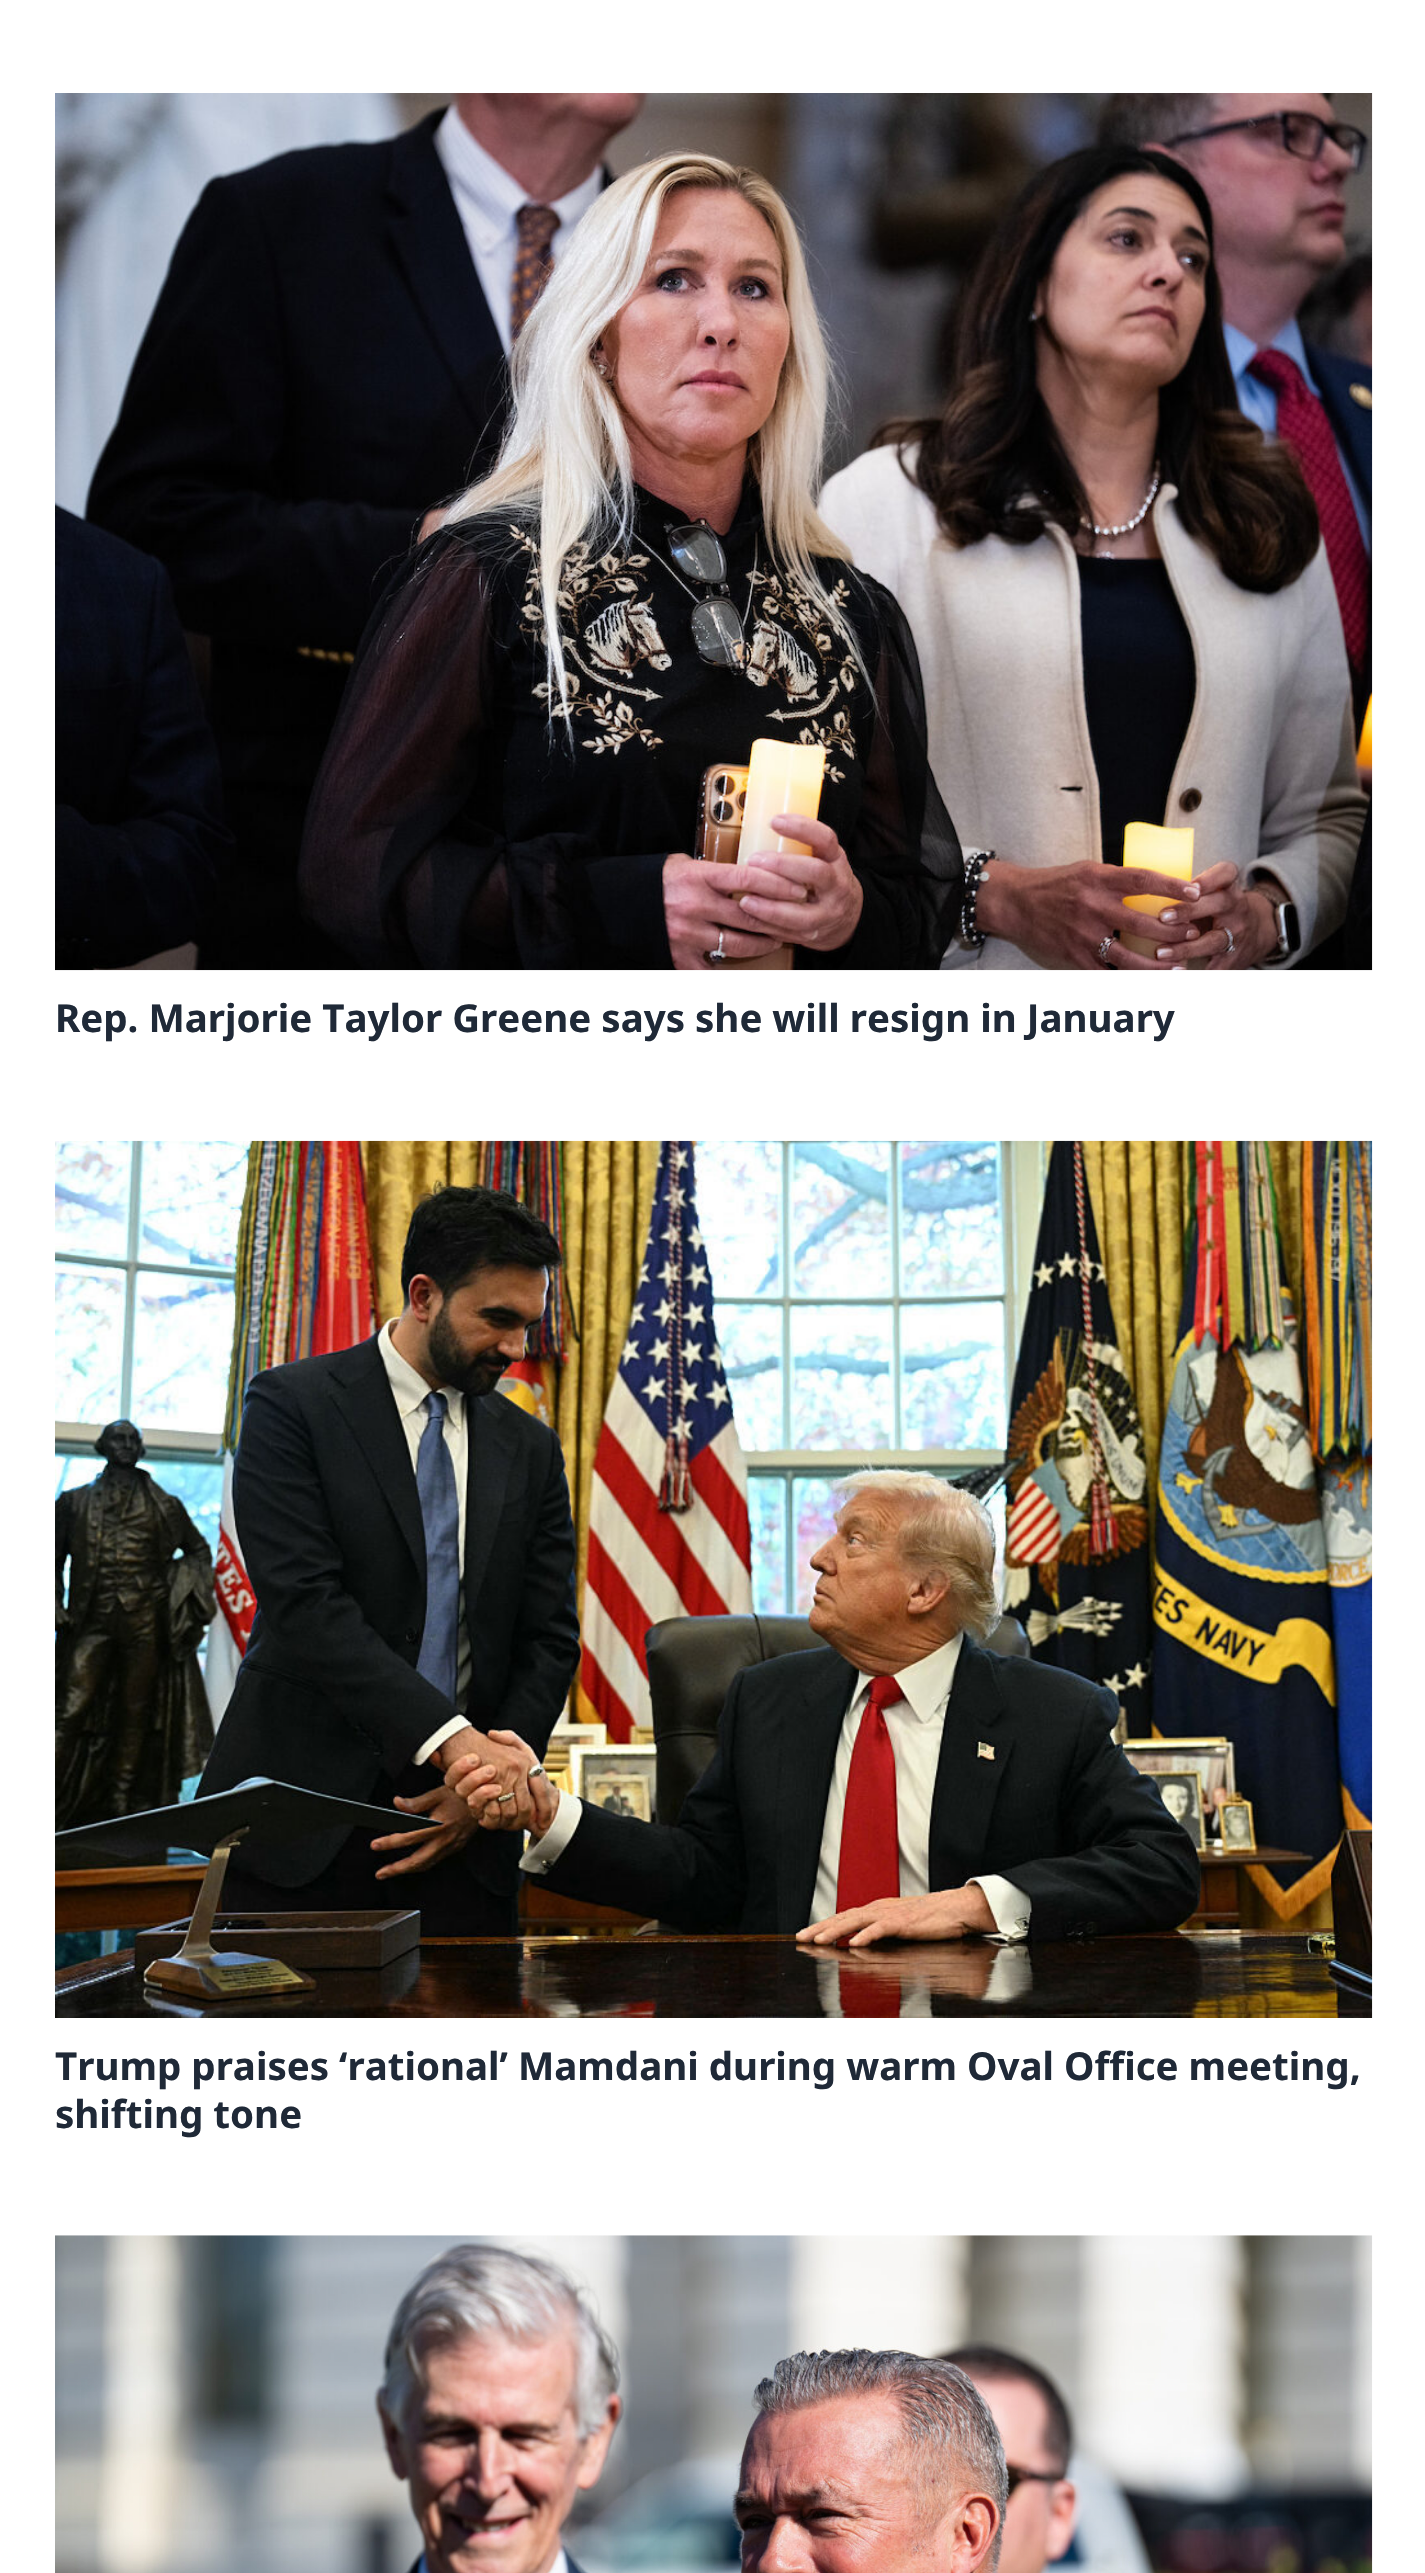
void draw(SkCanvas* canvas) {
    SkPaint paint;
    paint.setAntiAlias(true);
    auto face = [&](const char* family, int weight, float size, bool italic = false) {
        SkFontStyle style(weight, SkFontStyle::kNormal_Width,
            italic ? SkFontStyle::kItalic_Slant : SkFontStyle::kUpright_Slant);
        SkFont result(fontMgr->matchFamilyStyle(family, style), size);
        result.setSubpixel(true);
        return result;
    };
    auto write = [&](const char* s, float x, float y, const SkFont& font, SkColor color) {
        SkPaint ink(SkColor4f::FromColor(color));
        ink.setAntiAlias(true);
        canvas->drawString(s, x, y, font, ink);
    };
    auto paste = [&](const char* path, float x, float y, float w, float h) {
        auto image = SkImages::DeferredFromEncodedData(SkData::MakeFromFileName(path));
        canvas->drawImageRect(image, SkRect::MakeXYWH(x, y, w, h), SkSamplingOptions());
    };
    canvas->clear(SK_ColorWHITE);
    paste("pic1.png", 55, 93, 1318, 878);
    auto kFont1 = face("Noto Sans", 700, 38.5f);
    write("Rep. Marjorie Taylor Greene says she will resign in January", 55, 1032, kFont1, SkColorSetRGB(31, 41, 55));
    paste("pic2.png", 55, 1140, 1318, 878);
    write("Trump praises ‘rational’ Mamdani during warm Oval Office meeting,", 55, 2080, kFont1, SkColorSetRGB(31, 41, 55));
    write("shifting tone", 55, 2128, kFont1, SkColorSetRGB(31, 41, 55));
    paste("pic3.png", 55, 2235, 1318, 338);
}
